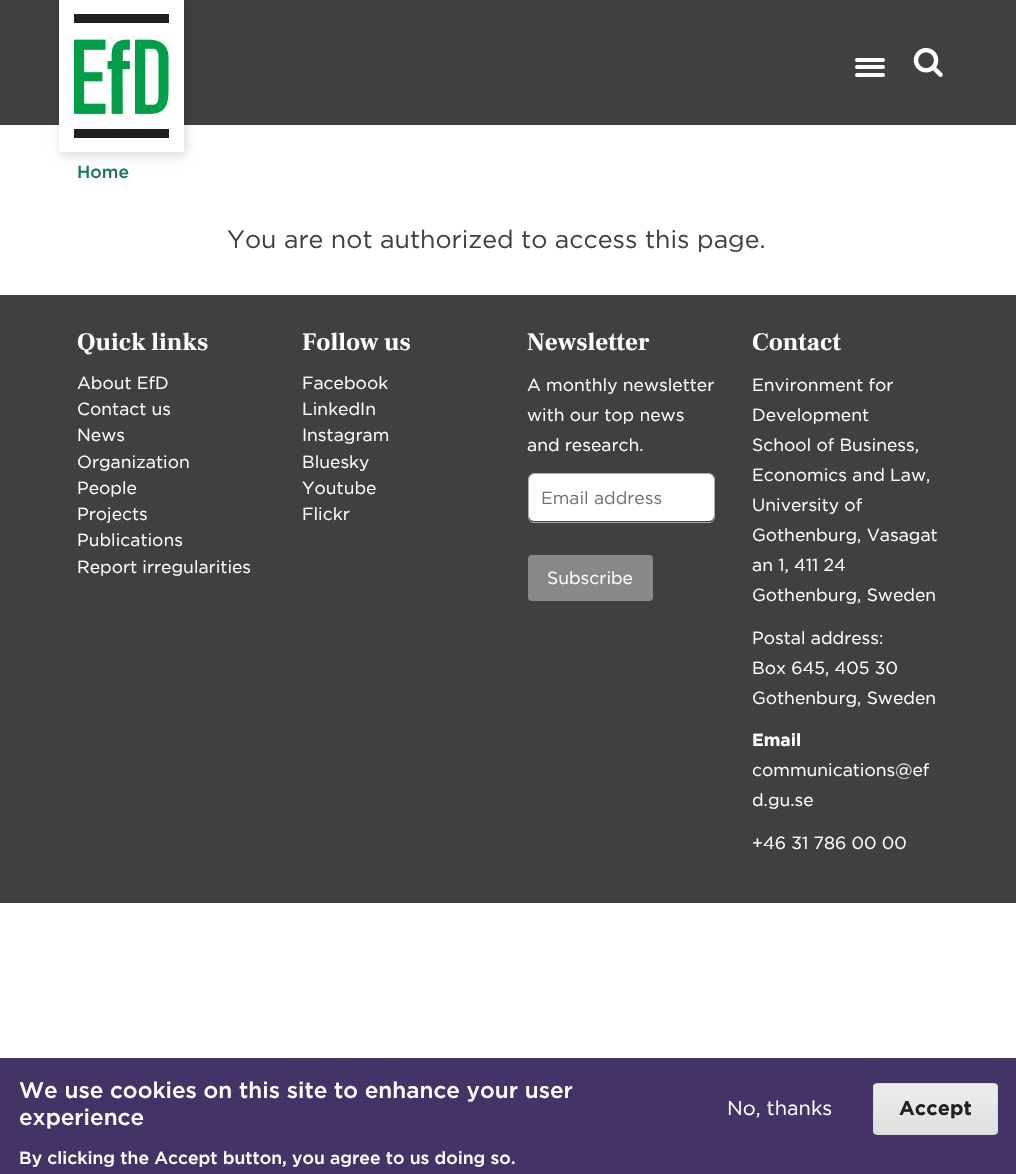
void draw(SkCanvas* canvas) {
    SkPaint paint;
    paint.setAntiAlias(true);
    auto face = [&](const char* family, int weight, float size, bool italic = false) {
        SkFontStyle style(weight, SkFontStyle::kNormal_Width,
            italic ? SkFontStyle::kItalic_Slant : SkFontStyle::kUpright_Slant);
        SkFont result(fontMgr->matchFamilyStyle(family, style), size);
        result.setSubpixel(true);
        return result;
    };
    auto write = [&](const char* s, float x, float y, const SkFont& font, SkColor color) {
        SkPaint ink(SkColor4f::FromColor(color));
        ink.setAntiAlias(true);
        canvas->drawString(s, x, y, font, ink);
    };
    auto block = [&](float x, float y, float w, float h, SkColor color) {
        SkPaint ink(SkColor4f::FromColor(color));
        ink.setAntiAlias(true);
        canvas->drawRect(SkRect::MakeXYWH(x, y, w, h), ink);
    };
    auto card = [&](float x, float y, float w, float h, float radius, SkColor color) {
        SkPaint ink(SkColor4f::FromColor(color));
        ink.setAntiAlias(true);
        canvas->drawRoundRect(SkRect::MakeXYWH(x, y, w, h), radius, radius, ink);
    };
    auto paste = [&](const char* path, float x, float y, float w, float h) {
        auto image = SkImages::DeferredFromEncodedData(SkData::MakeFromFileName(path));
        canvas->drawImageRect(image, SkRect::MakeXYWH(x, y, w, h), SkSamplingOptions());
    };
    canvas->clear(SK_ColorWHITE);
    block(0, 0, 1016, 125, SkColorSetRGB(64, 64, 64));
    paint.setColor(SkColorSetARGB(38, 0, 0, 0));
    paint.setMaskFilter(SkMaskFilter::MakeBlur(kNormal_SkBlurStyle, 5));
    canvas->drawRect(SkRect::MakeXYWH(61, 3, 125, 152), paint);
    paint.setMaskFilter(nullptr);
    paste("pic1.png", 59, 0, 125, 152);
    card(855, 58, 30, 4, 2, SK_ColorWHITE);
    card(855, 65, 30, 4, 2, SK_ColorWHITE);
    card(855, 73, 30, 4, 2, SK_ColorWHITE);
    paste("pic2.png", 913, 48, 30, 29);
    auto kFont1 = face("Gotham", 500, 17.5f);
    write("Home", 77, 178, kFont1, SkColorSetRGB(28, 119, 83));
    auto kFont2 = face("Gotham", 400, 25);
    write("You are not authorized to access this page.", 227, 248, kFont2, SkColorSetRGB(64, 64, 64));
    block(0, 295, 1016, 608, SkColorSetRGB(64, 64, 64));
    auto kFont3 = face("Frank Ruhl Libre", 700, 25);
    write("Quick links", 77, 350, kFont3, SK_ColorWHITE);
    auto kFont4 = face("Gotham", 400, 17.5f);
    write("About EfD", 77, 389, kFont4, SK_ColorWHITE);
    write("Contact us", 77, 415, kFont4, SK_ColorWHITE);
    write("News", 77, 441, kFont4, SK_ColorWHITE);
    write("Organization", 77, 468, kFont4, SK_ColorWHITE);
    write("People", 77, 494, kFont4, SK_ColorWHITE);
    write("Projects", 77, 520, kFont4, SK_ColorWHITE);
    write("Publications", 77, 546, kFont4, SK_ColorWHITE);
    write("Report irregularities", 77, 573, kFont4, SK_ColorWHITE);
    write("Follow us", 302, 350, kFont3, SK_ColorWHITE);
    write("Facebook", 302, 389, kFont4, SK_ColorWHITE);
    write("LinkedIn", 302, 415, kFont4, SK_ColorWHITE);
    write("Instagram", 302, 441, kFont4, SK_ColorWHITE);
    write("Bluesky", 302, 468, kFont4, SK_ColorWHITE);
    write("Youtube", 302, 494, kFont4, SK_ColorWHITE);
    write("Flickr", 302, 520, kFont4, SK_ColorWHITE);
    write("Newsletter", 527, 350, kFont3, SK_ColorWHITE);
    write("A monthly newsletter", 527, 391, kFont4, SK_ColorWHITE);
    write("with our top news", 527, 421, kFont4, SK_ColorWHITE);
    write("and research.", 527, 451, kFont4, SK_ColorWHITE);
    card(529, 474, 185, 47, 5, SK_ColorWHITE);
    paint.setStyle(SkPaint::kStroke_Style);
    paint.setStrokeWidth(1);
    paint.setColor(SkColorSetRGB(170, 170, 170));
    canvas->drawRoundRect(SkRect::MakeXYWH(528.5f, 473.5f, 186, 49), 5.5f, 5.5f, paint);
    write("Email address", 541, 504, kFont4, SkColorSetRGB(108, 117, 125));
    card(528, 555, 125, 46, 4, SkColorSetRGB(136, 136, 136));
    write("Subscribe", 547, 584, kFont4, SK_ColorWHITE);
    write("Contact", 752, 350, kFont3, SK_ColorWHITE);
    write("Environment for", 752, 391, kFont4, SK_ColorWHITE);
    write("Development", 752, 421, kFont4, SK_ColorWHITE);
    write("School of Business,", 752, 451, kFont4, SK_ColorWHITE);
    write("Economics and Law,", 752, 481, kFont4, SK_ColorWHITE);
    write("University of", 752, 511, kFont4, SK_ColorWHITE);
    write("Gothenburg, Vasagat", 752, 541, kFont4, SK_ColorWHITE);
    write("an 1, 411 24", 752, 571, kFont4, SK_ColorWHITE);
    write("Gothenburg, Sweden", 752, 601, kFont4, SK_ColorWHITE);
    write("Postal address:", 752, 644, kFont4, SK_ColorWHITE);
    write("Box 645, 405 30", 752, 674, kFont4, SK_ColorWHITE);
    write("Gothenburg, Sweden", 752, 704, kFont4, SK_ColorWHITE);
    auto kFont5 = face("Gotham", 700, 17.5f);
    write("Email", 752, 746, kFont5, SK_ColorWHITE);
    write("communications@ef", 752, 776, kFont4, SK_ColorWHITE);
    write("d.gu.se", 752, 806, kFont4, SK_ColorWHITE);
    write("+46 31 786 00 00", 752, 849, kFont4, SK_ColorWHITE);
    block(0, 1058, 1016, 116, SkColorSetRGB(68, 51, 102));
    auto kFont6 = face("Gotham", 500, 22.5f);
    write("We use cookies on this site to enhance your user", 19, 1098, kFont6, SK_ColorWHITE);
    write("experience", 19, 1125, kFont6, SK_ColorWHITE);
    write("By clicking the Accept button, you agree to us doing so.", 19, 1164, kFont1, SK_ColorWHITE);
    auto kFont7 = face("Gotham", 400, 20);
    write("No, thanks", 727, 1115, kFont7, SK_ColorWHITE);
    canvas->save();
    canvas->clipPath(SkPathBuilder().moveTo(877, 1083).lineTo(994, 1083).cubicTo(996, 1083, 998, 1085, 998, 1087).lineTo(998, 1131).cubicTo(998, 1133, 996, 1135, 994, 1135).lineTo(877, 1135).cubicTo(875, 1135, 873, 1133, 873, 1131).lineTo(873, 1087).cubicTo(873, 1085, 875, 1083, 877, 1083).close().detach(), true);
    paint.setStyle(SkPaint::kFill_Style);
    {
        const SkColor colors[] = {SkColorSetRGB(237, 237, 237), SkColorSetRGB(223, 223, 223)};
        const float stops[] = {0.05f, 1};
        const SkPoint ends[] = {{935, 1084}, {935, 1134}};
        paint.setShader(SkGradientShader::MakeLinear(ends, colors, stops, 2, SkTileMode::kClamp));
        paint.setAlpha(255);
    }
    canvas->drawRect(SkRect::MakeXYWH(873, 1084, 125, 50), paint);
    canvas->restore();
    paint.setStyle(SkPaint::kStroke_Style);
    paint.setShader(nullptr);
    paint.setColor(SkColorSetRGB(220, 220, 220));
    canvas->drawRoundRect(SkRect::MakeXYWH(873.5f, 1083.5f, 124, 51), 3.5f, 3.5f, paint);
    auto kFont8 = face("Gotham", 700, 20);
    write("Accept", 899, 1115, kFont8, SkColorSetRGB(33, 33, 33));
}
